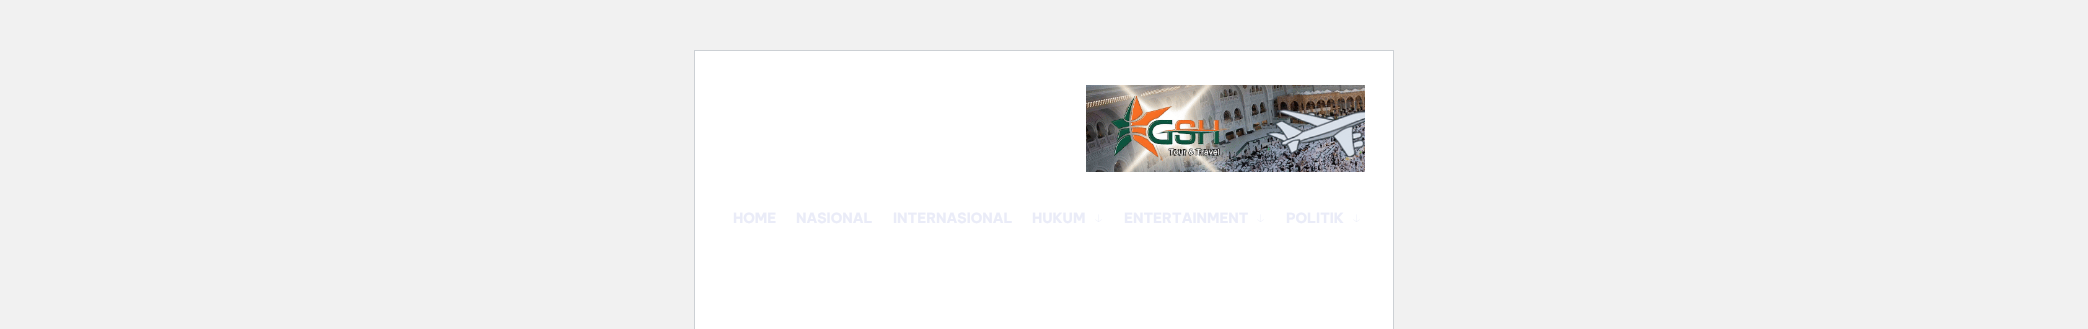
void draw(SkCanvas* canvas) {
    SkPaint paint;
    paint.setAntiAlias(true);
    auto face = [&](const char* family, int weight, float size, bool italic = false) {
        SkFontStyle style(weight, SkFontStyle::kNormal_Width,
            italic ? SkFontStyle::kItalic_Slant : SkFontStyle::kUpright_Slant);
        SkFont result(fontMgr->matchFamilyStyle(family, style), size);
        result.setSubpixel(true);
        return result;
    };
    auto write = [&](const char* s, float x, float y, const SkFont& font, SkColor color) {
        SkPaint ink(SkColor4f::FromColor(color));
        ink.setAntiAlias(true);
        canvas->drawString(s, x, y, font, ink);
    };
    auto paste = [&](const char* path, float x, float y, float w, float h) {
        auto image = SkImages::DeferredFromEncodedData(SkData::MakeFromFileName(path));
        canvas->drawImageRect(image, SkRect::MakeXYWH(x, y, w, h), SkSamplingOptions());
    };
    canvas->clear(SkColorSetRGB(241, 241, 241));
    paint.setColor(SK_ColorWHITE);
    canvas->drawRect(SkRect::MakeXYWH(694.5f, 50.5f, 699, 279), paint);
    paint.setStyle(SkPaint::kStroke_Style);
    paint.setStrokeWidth(1);
    paint.setColor(SkColorSetRGB(204, 208, 212));
    canvas->drawRect(SkRect::MakeXYWH(694.5f, 50.5f, 699, 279), paint);
    paste("pic1.png", 1086, 85, 279, 87);
    auto kFont1 = face("Be Vietnam Pro", 700, 14);
    write("HOME", 733, 223, kFont1, SkColorSetRGB(234, 236, 248));
    write("NASIONAL", 796, 223, kFont1, SkColorSetRGB(234, 236, 248));
    write("INTERNASIONAL", 893, 223, kFont1, SkColorSetRGB(234, 236, 248));
    write("HUKUM", 1032, 223, kFont1, SkColorSetRGB(234, 236, 248));
    paste("pic2.png", 1095, 214, 7, 8);
    write("ENTERTAINMENT", 1124, 223, kFont1, SkColorSetRGB(234, 236, 248));
    paste("pic2.png", 1257, 214, 7, 8);
    write("POLITIK", 1286, 223, kFont1, SkColorSetRGB(234, 236, 248));
    paste("pic2.png", 1353, 214, 7, 8);
}
